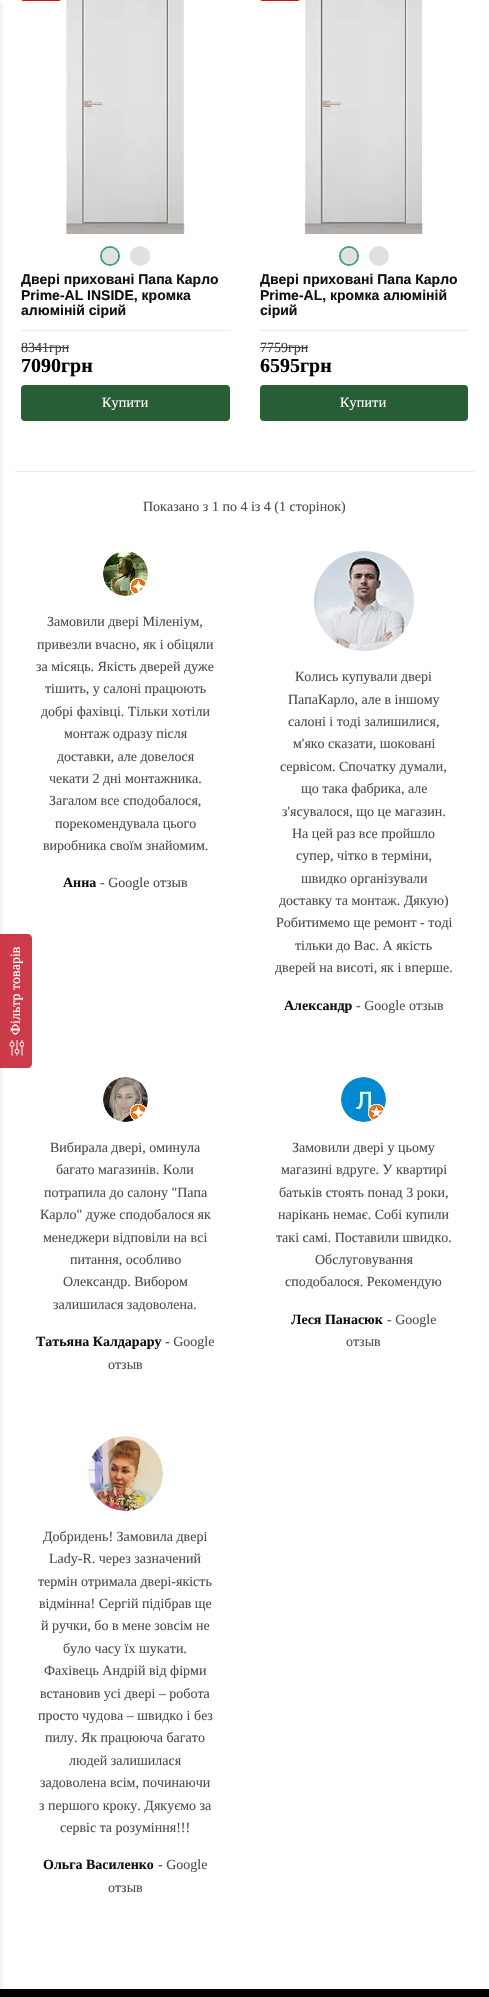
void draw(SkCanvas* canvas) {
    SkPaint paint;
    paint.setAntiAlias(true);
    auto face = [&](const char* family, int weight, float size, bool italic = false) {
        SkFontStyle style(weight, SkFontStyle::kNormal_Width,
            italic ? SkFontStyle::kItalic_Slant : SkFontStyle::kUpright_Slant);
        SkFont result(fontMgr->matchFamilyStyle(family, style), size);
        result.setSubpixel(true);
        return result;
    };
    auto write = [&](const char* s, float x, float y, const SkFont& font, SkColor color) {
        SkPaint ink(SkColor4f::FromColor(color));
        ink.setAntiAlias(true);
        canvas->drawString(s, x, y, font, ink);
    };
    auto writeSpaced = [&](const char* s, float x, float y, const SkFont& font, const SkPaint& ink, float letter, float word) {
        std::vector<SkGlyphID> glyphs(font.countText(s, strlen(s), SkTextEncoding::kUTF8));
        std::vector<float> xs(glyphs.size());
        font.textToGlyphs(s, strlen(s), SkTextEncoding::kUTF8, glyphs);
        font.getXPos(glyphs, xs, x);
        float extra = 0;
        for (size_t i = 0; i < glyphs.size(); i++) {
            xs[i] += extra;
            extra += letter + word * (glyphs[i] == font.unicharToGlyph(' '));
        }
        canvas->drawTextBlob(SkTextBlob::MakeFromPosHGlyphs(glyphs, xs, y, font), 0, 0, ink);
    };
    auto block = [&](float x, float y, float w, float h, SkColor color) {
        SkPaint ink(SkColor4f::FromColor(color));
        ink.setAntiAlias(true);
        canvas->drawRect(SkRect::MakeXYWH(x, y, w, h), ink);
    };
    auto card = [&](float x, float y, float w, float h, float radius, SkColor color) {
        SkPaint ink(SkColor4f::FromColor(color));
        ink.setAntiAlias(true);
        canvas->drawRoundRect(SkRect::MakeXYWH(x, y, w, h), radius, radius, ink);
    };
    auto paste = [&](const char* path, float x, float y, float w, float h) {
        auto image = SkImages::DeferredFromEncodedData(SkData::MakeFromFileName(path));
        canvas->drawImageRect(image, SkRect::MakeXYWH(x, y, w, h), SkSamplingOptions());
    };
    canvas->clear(SK_ColorWHITE);
    block(0, 1989, 489, 8, SK_ColorBLACK);
    paint.setColor(SkColorSetARGB(33, 0, 0, 0));
    paint.setMaskFilter(SkMaskFilter::MakeBlur(kNormal_SkBlurStyle, 2.5f));
    canvas->drawRect(SkRect::MakeXYWH(-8, 1, 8, 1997), paint);
    paint.setMaskFilter(nullptr);
    paint.setColor(SkColorSetARGB(217, 195, 25, 41));
    canvas->drawPath(SkPathBuilder().moveTo(0, 1068).lineTo(0, 934).lineTo(28, 934).cubicTo(30, 934, 32, 936, 32, 938).lineTo(32, 1064).cubicTo(32, 1066, 30, 1068, 28, 1068).close().detach(), paint);
    auto kFont1 = face("Liberation Serif", 400, 14);
    canvas->save();
    canvas->rotate(-90, 20, 1035);
    write("Фільтр товарів", 20, 1035, kFont1, SK_ColorWHITE);
    canvas->restore();
    paste("pic1.png", 9, 1040, 15, 16);
    card(21, -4, 40, 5, 4, SkColorSetRGB(212, 18, 18));
    paste("pic2.png", 65, 0, 120, 234);
    paint.setColor(SkColorSetRGB(249, 249, 249));
    canvas->drawCircle(110, 256, 9, paint);
    paint.setStyle(SkPaint::kStroke_Style);
    paint.setStrokeWidth(2);
    paint.setColor(SkColorSetRGB(66, 160, 115));
    canvas->drawCircle(110, 256, 9, paint);
    paste("pic3.png", 102, 248, 16, 16);
    paste("pic4.png", 130, 246, 20, 20);
    auto kFont2 = face("Liberation Sans", 700, 14);
    write("Двері приховані Папа Карло", 21, 284, kFont2, SkColorSetRGB(17, 17, 17));
    write("Prime-AL INSIDE, кромка", 21, 300, kFont2, SkColorSetRGB(17, 17, 17));
    write("алюміній сірий", 21, 315, kFont2, SkColorSetRGB(17, 17, 17));
    block(21, 330, 209, 1, SkColorSetRGB(236, 236, 236));
    write("8341грн", 21, 352, kFont1, SkColorSetRGB(63, 63, 63));
    block(21, 347, 48, 1, SkColorSetRGB(63, 63, 63));
    auto kFont3 = face("Liberation Serif", 700, 20);
    write("7090грн", 21, 372, kFont3, SK_ColorBLACK);
    card(21, 385, 209, 36, 4, SkColorSetRGB(39, 94, 53));
    paint.setStyle(SkPaint::kFill_Style);
    paint.setColor(SK_ColorWHITE);
    writeSpaced("Купити", 102, 407, kFont1, paint, 0.25f, 0);
    card(260, -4, 40, 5, 4, SkColorSetRGB(212, 18, 18));
    paste("pic5.png", 304, 0, 119, 234);
    paint.setColor(SkColorSetRGB(249, 249, 249));
    canvas->drawCircle(349, 256, 9, paint);
    paint.setStyle(SkPaint::kStroke_Style);
    paint.setColor(SkColorSetRGB(66, 160, 115));
    canvas->drawCircle(349, 256, 9, paint);
    paste("pic3.png", 341, 248, 16, 16);
    paste("pic6.png", 369, 246, 20, 20);
    canvas->save();
    canvas->clipRect(SkRect::MakeXYWH(260, 271, 208, 49));
    write("Двері приховані Папа Карло", 260, 284, kFont2, SkColorSetRGB(17, 17, 17));
    canvas->restore();
    write("Prime-AL, кромка алюміній", 260, 300, kFont2, SkColorSetRGB(17, 17, 17));
    write("сірий", 260, 315, kFont2, SkColorSetRGB(17, 17, 17));
    block(260, 330, 208, 1, SkColorSetRGB(236, 236, 236));
    write("7759грн", 260, 352, kFont1, SkColorSetRGB(63, 63, 63));
    block(260, 347, 48, 1, SkColorSetRGB(63, 63, 63));
    write("6595грн", 260, 372, kFont3, SK_ColorBLACK);
    card(260, 385, 208, 36, 4, SkColorSetRGB(39, 94, 53));
    paint.setStyle(SkPaint::kFill_Style);
    paint.setColor(SK_ColorWHITE);
    writeSpaced("Купити", 340, 407, kFont1, paint, 0.25f, 0);
    block(15, 471, 459, 1, SkColorSetRGB(236, 236, 236));
    write("Показано з 1 по 4 із 4 (1 сторінок)", 143, 511, kFont1, SkColorSetRGB(76, 76, 76));
    paste("pic7.png", 103, 551, 45, 45);
    write("Замовили двері Міленіум,", 47, 626, kFont1, SkColorSetRGB(76, 76, 76));
    write("привезли вчасно, як і обіцяли", 37, 649, kFont1, SkColorSetRGB(76, 76, 76));
    write("за місяць. Якість дверей дуже", 36, 671, kFont1, SkColorSetRGB(76, 76, 76));
    write("тішить, у салоні працюють", 45, 693, kFont1, SkColorSetRGB(76, 76, 76));
    write("добрі фахівці. Тільки хотіли", 41, 716, kFont1, SkColorSetRGB(76, 76, 76));
    write("монтаж одразу після", 64, 738, kFont1, SkColorSetRGB(76, 76, 76));
    write("доставки, але довелося", 57, 761, kFont1, SkColorSetRGB(76, 76, 76));
    write("чекати 2 дні монтажника.", 49, 783, kFont1, SkColorSetRGB(76, 76, 76));
    write("Загалом все сподобалося,", 49, 805, kFont1, SkColorSetRGB(76, 76, 76));
    write("порекомендувала цього", 55, 828, kFont1, SkColorSetRGB(76, 76, 76));
    write("виробника своїм знайомим.", 43, 850, kFont1, SkColorSetRGB(76, 76, 76));
    auto kFont4 = face("Liberation Serif", 700, 14);
    write("Анна", 63, 887, kFont4, SkColorSetRGB(17, 17, 17));
    write("- Google отзыв", 100, 887, kFont1, SkColorSetRGB(76, 76, 76));
    paste("pic8.png", 314, 551, 100, 100);
    write("Колись купували двері", 295, 681, kFont1, SkColorSetRGB(76, 76, 76));
    write("ПапаКарло, але в іншому", 288, 704, kFont1, SkColorSetRGB(76, 76, 76));
    write("салоні і тоді залишилися,", 288, 726, kFont1, SkColorSetRGB(76, 76, 76));
    write("м'яко сказати, шоковані", 293, 748, kFont1, SkColorSetRGB(76, 76, 76));
    write("сервісом. Спочатку думали,", 280, 771, kFont1, SkColorSetRGB(76, 76, 76));
    write("що така фабрика, але", 301, 793, kFont1, SkColorSetRGB(76, 76, 76));
    write("з'ясувалося, що це магазин.", 282, 816, kFont1, SkColorSetRGB(76, 76, 76));
    write("На цей раз все пройшло", 292, 838, kFont1, SkColorSetRGB(76, 76, 76));
    write("супер, чітко в терміни,", 296, 860, kFont1, SkColorSetRGB(76, 76, 76));
    write("швидко організували", 301, 883, kFont1, SkColorSetRGB(76, 76, 76));
    write("доставку та монтаж. Дякую)", 279, 905, kFont1, SkColorSetRGB(76, 76, 76));
    write("Робитимемо ще ремонт - тоді", 276, 927, kFont1, SkColorSetRGB(76, 76, 76));
    write("тільки до Вас. А якість", 295, 950, kFont1, SkColorSetRGB(76, 76, 76));
    write("дверей на висоті, як і вперше.", 275, 972, kFont1, SkColorSetRGB(76, 76, 76));
    write("Александр", 284, 1010, kFont4, SkColorSetRGB(17, 17, 17));
    write("- Google отзыв", 356, 1010, kFont1, SkColorSetRGB(76, 76, 76));
    paste("pic9.png", 103, 1077, 45, 45);
    write("Вибирала двері, оминула", 50, 1152, kFont1, SkColorSetRGB(76, 76, 76));
    write("багато магазинів. Коли", 56, 1174, kFont1, SkColorSetRGB(76, 76, 76));
    write("потрапила до салону \"Папа", 44, 1197, kFont1, SkColorSetRGB(76, 76, 76));
    write("Карло\" дуже сподобалося як", 40, 1219, kFont1, SkColorSetRGB(76, 76, 76));
    write("менеджери відповіли на всі", 43, 1242, kFont1, SkColorSetRGB(76, 76, 76));
    write("питання, особливо", 70, 1264, kFont1, SkColorSetRGB(76, 76, 76));
    write("Олександр. Вибором", 63, 1286, kFont1, SkColorSetRGB(76, 76, 76));
    write("залишилася задоволена.", 53, 1309, kFont1, SkColorSetRGB(76, 76, 76));
    write("Татьяна Калдарару", 36, 1346, kFont4, SkColorSetRGB(17, 17, 17));
    write("- Google", 165, 1346, kFont1, SkColorSetRGB(76, 76, 76));
    write("отзыв", 108, 1369, kFont1, SkColorSetRGB(76, 76, 76));
    paste("pic10.png", 341, 1077, 45, 45);
    write("Замовили двері у цьому", 292, 1152, kFont1, SkColorSetRGB(76, 76, 76));
    write("магазині вдруге. У квартирі", 281, 1174, kFont1, SkColorSetRGB(76, 76, 76));
    write("батьків стоять понад 3 роки,", 279, 1197, kFont1, SkColorSetRGB(76, 76, 76));
    write("нарікань немає. Собі купили", 278, 1219, kFont1, SkColorSetRGB(76, 76, 76));
    write("такі самі. Поставили швидко.", 276, 1242, kFont1, SkColorSetRGB(76, 76, 76));
    write("Обслуговування", 315, 1264, kFont1, SkColorSetRGB(76, 76, 76));
    write("сподобалося. Рекомендую", 285, 1286, kFont1, SkColorSetRGB(76, 76, 76));
    write("Леся Панасюк", 291, 1324, kFont4, SkColorSetRGB(17, 17, 17));
    write("- Google", 387, 1324, kFont1, SkColorSetRGB(76, 76, 76));
    write("отзыв", 346, 1346, kFont1, SkColorSetRGB(76, 76, 76));
    paste("pic11.png", 88, 1436, 75, 75);
    write("Добридень! Замовила двері", 43, 1541, kFont1, SkColorSetRGB(76, 76, 76));
    write("Lady-R. через зазначений", 49, 1563, kFont1, SkColorSetRGB(76, 76, 76));
    write("термін отримала двері-якість", 38, 1586, kFont1, SkColorSetRGB(76, 76, 76));
    write("відмінна! Сергій підібрав ще", 39, 1608, kFont1, SkColorSetRGB(76, 76, 76));
    write("й ручки, бо в мене зовсім не", 41, 1630, kFont1, SkColorSetRGB(76, 76, 76));
    write("було часу їх шукати.", 63, 1653, kFont1, SkColorSetRGB(76, 76, 76));
    write("Фахівець Андрій від фірми", 44, 1675, kFont1, SkColorSetRGB(76, 76, 76));
    write("встановив усі двері – робота", 40, 1698, kFont1, SkColorSetRGB(76, 76, 76));
    write("просто чудова – швидко і без", 38, 1720, kFont1, SkColorSetRGB(76, 76, 76));
    write("пилу. Як працююча багато", 45, 1742, kFont1, SkColorSetRGB(76, 76, 76));
    write("людей залишилася", 69, 1765, kFont1, SkColorSetRGB(76, 76, 76));
    write("задоволена всім, починаючи", 40, 1787, kFont1, SkColorSetRGB(76, 76, 76));
    write("з першого кроку. Дякуємо за", 39, 1810, kFont1, SkColorSetRGB(76, 76, 76));
    write("сервіс та розуміння!!!", 60, 1832, kFont1, SkColorSetRGB(76, 76, 76));
    write("Ольга Василенко", 43, 1869, kFont4, SkColorSetRGB(17, 17, 17));
    write("- Google", 158, 1869, kFont1, SkColorSetRGB(76, 76, 76));
    write("отзыв", 108, 1892, kFont1, SkColorSetRGB(76, 76, 76));
}
